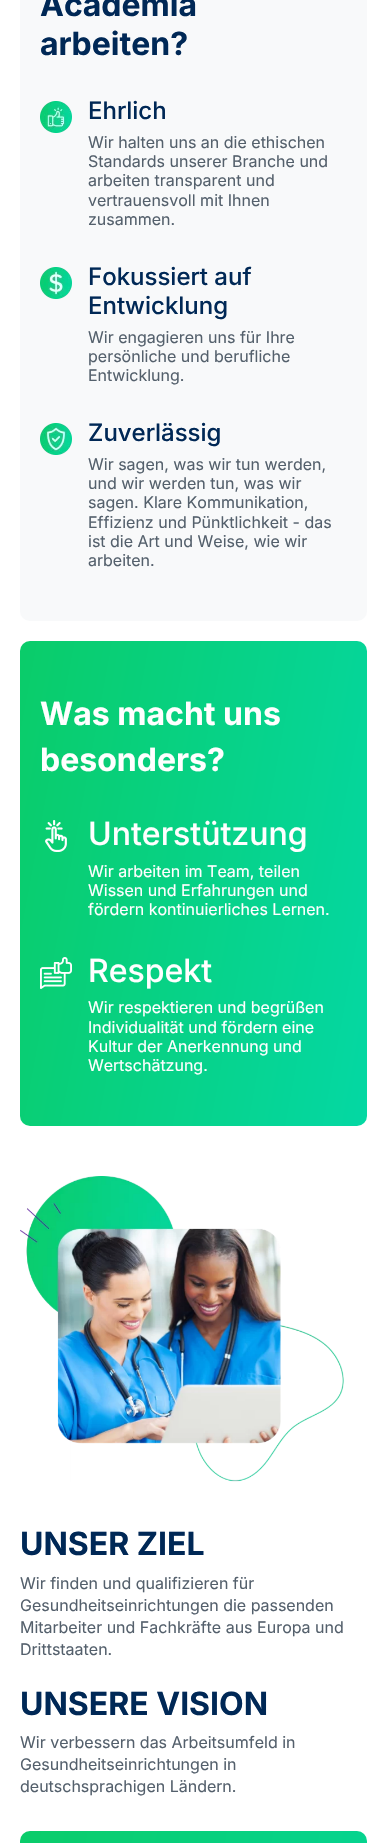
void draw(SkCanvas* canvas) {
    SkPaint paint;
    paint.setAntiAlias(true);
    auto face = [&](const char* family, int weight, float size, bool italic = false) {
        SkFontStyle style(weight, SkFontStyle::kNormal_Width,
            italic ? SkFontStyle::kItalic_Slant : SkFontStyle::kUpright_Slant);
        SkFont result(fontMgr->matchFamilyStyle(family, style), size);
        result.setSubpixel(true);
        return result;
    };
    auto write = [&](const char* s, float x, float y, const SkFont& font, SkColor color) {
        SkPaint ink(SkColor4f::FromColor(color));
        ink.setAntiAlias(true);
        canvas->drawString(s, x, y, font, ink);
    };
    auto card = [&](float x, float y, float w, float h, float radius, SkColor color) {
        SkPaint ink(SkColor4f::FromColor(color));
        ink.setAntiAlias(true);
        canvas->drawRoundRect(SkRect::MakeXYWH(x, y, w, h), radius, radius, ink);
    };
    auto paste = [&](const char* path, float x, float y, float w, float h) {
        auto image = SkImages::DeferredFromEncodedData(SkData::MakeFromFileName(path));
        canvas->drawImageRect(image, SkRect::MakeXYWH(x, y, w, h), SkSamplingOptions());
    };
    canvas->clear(SK_ColorWHITE);
    card(20, -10, 347, 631, 10, SkColorSetRGB(248, 249, 250));
    auto kFont1 = face("Inter", 700, 32);
    write("Academia", 40, 16, kFont1, SkColorSetRGB(0, 40, 86));
    write("arbeiten?", 40, 55, kFont1, SkColorSetRGB(0, 40, 86));
    paste("pic1.png", 40, 101, 32, 32);
    auto kFont2 = face("Inter", 500, 24);
    write("Ehrlich", 88, 119, kFont2, SkColorSetRGB(0, 40, 86));
    auto kFont3 = face("Inter", 400, 16);
    write("Wir halten uns an die ethischen", 88, 148, kFont3, SkColorSetRGB(84, 96, 108));
    write("Standards unserer Branche und", 88, 167, kFont3, SkColorSetRGB(84, 96, 108));
    write("arbeiten transparent und", 88, 186, kFont3, SkColorSetRGB(84, 96, 108));
    write("vertrauensvoll mit Ihnen", 88, 206, kFont3, SkColorSetRGB(84, 96, 108));
    write("zusammen.", 88, 225, kFont3, SkColorSetRGB(84, 96, 108));
    paste("pic2.png", 40, 267, 32, 32);
    write("Fokussiert auf", 88, 285, kFont2, SkColorSetRGB(0, 40, 86));
    write("Entwicklung", 88, 314, kFont2, SkColorSetRGB(0, 40, 86));
    write("Wir engagieren uns für Ihre", 88, 343, kFont3, SkColorSetRGB(84, 96, 108));
    write("persönliche und berufliche", 88, 362, kFont3, SkColorSetRGB(84, 96, 108));
    write("Entwicklung.", 88, 381, kFont3, SkColorSetRGB(84, 96, 108));
    paste("pic3.png", 40, 423, 32, 32);
    write("Zuverlässig", 88, 441, kFont2, SkColorSetRGB(0, 40, 86));
    write("Wir sagen, was wir tun werden,", 88, 470, kFont3, SkColorSetRGB(84, 96, 108));
    write("und wir werden tun, was wir", 88, 489, kFont3, SkColorSetRGB(84, 96, 108));
    write("sagen. Klare Kommunikation,", 88, 508, kFont3, SkColorSetRGB(84, 96, 108));
    write("Effizienz und Pünktlichkeit - das", 88, 528, kFont3, SkColorSetRGB(84, 96, 108));
    write("ist die Art und Weise, wie wir", 88, 547, kFont3, SkColorSetRGB(84, 96, 108));
    write("arbeiten.", 88, 566, kFont3, SkColorSetRGB(84, 96, 108));
    {
        const SkColor colors[] = {SkColorSetRGB(16, 192, 45), SkColorSetRGB(0, 224, 205)};
        const float stops[] = {0, 1};
        const SkPoint ends[] = {{-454, 764}, {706, 978}};
        paint.setShader(SkGradientShader::MakeLinear(ends, colors, stops, 2, SkTileMode::kClamp));
        paint.setAlpha(255);
    }
    canvas->drawRoundRect(SkRect::MakeXYWH(20, 641, 347, 485), 10, 10, paint);
    write("Was macht uns", 40, 725, kFont1, SK_ColorWHITE);
    write("besonders?", 40, 771, kFont1, SK_ColorWHITE);
    paste("pic4.png", 45, 820, 22, 32);
    auto kFont4 = face("Inter", 500, 32);
    write("Unterstützung", 88, 845, kFont4, SK_ColorWHITE);
    write("Wir arbeiten im Team, teilen", 88, 877, kFont3, SK_ColorWHITE);
    write("Wissen und Erfahrungen und", 88, 896, kFont3, SK_ColorWHITE);
    write("fördern kontinuierliches Lernen.", 88, 915, kFont3, SK_ColorWHITE);
    paste("pic5.png", 40, 957, 32, 32);
    write("Respekt", 88, 982, kFont4, SK_ColorWHITE);
    write("Wir respektieren und begrüßen", 88, 1013, kFont3, SK_ColorWHITE);
    write("Individualität und fördern eine", 88, 1033, kFont3, SK_ColorWHITE);
    write("Kultur der Anerkennung und", 88, 1052, kFont3, SK_ColorWHITE);
    write("Wertschätzung.", 88, 1071, kFont3, SK_ColorWHITE);
    paste("pic6.png", 20, 1176, 324, 306);
    write("UNSER ZIEL", 20, 1555, kFont1, SkColorSetRGB(0, 40, 86));
    write("Wir finden und qualifizieren für", 20, 1589, kFont3, SkColorSetRGB(84, 96, 108));
    write("Gesundheitseinrichtungen die passenden", 20, 1611, kFont3, SkColorSetRGB(84, 96, 108));
    write("Mitarbeiter und Fachkräfte aus Europa und", 20, 1633, kFont3, SkColorSetRGB(84, 96, 108));
    write("Drittstaaten.", 20, 1655, kFont3, SkColorSetRGB(84, 96, 108));
    write("UNSERE VISION", 20, 1715, kFont1, SkColorSetRGB(0, 40, 86));
    write("Wir verbessern das Arbeitsumfeld in", 20, 1748, kFont3, SkColorSetRGB(84, 96, 108));
    write("Gesundheitseinrichtungen in", 20, 1770, kFont3, SkColorSetRGB(84, 96, 108));
    write("deutschsprachigen Ländern.", 20, 1792, kFont3, SkColorSetRGB(84, 96, 108));
    {
        const SkColor colors[] = {SkColorSetRGB(16, 192, 45), SkColorSetRGB(0, 224, 205)};
        const float stops[] = {0, 1};
        const SkPoint ends[] = {{-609, 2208}, {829, 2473}};
        paint.setShader(SkGradientShader::MakeLinear(ends, colors, stops, 2, SkTileMode::kClamp));
        paint.setAlpha(255);
    }
    canvas->drawRoundRect(SkRect::MakeXYWH(20, 1831, 347, 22), 10, 10, paint);
}
